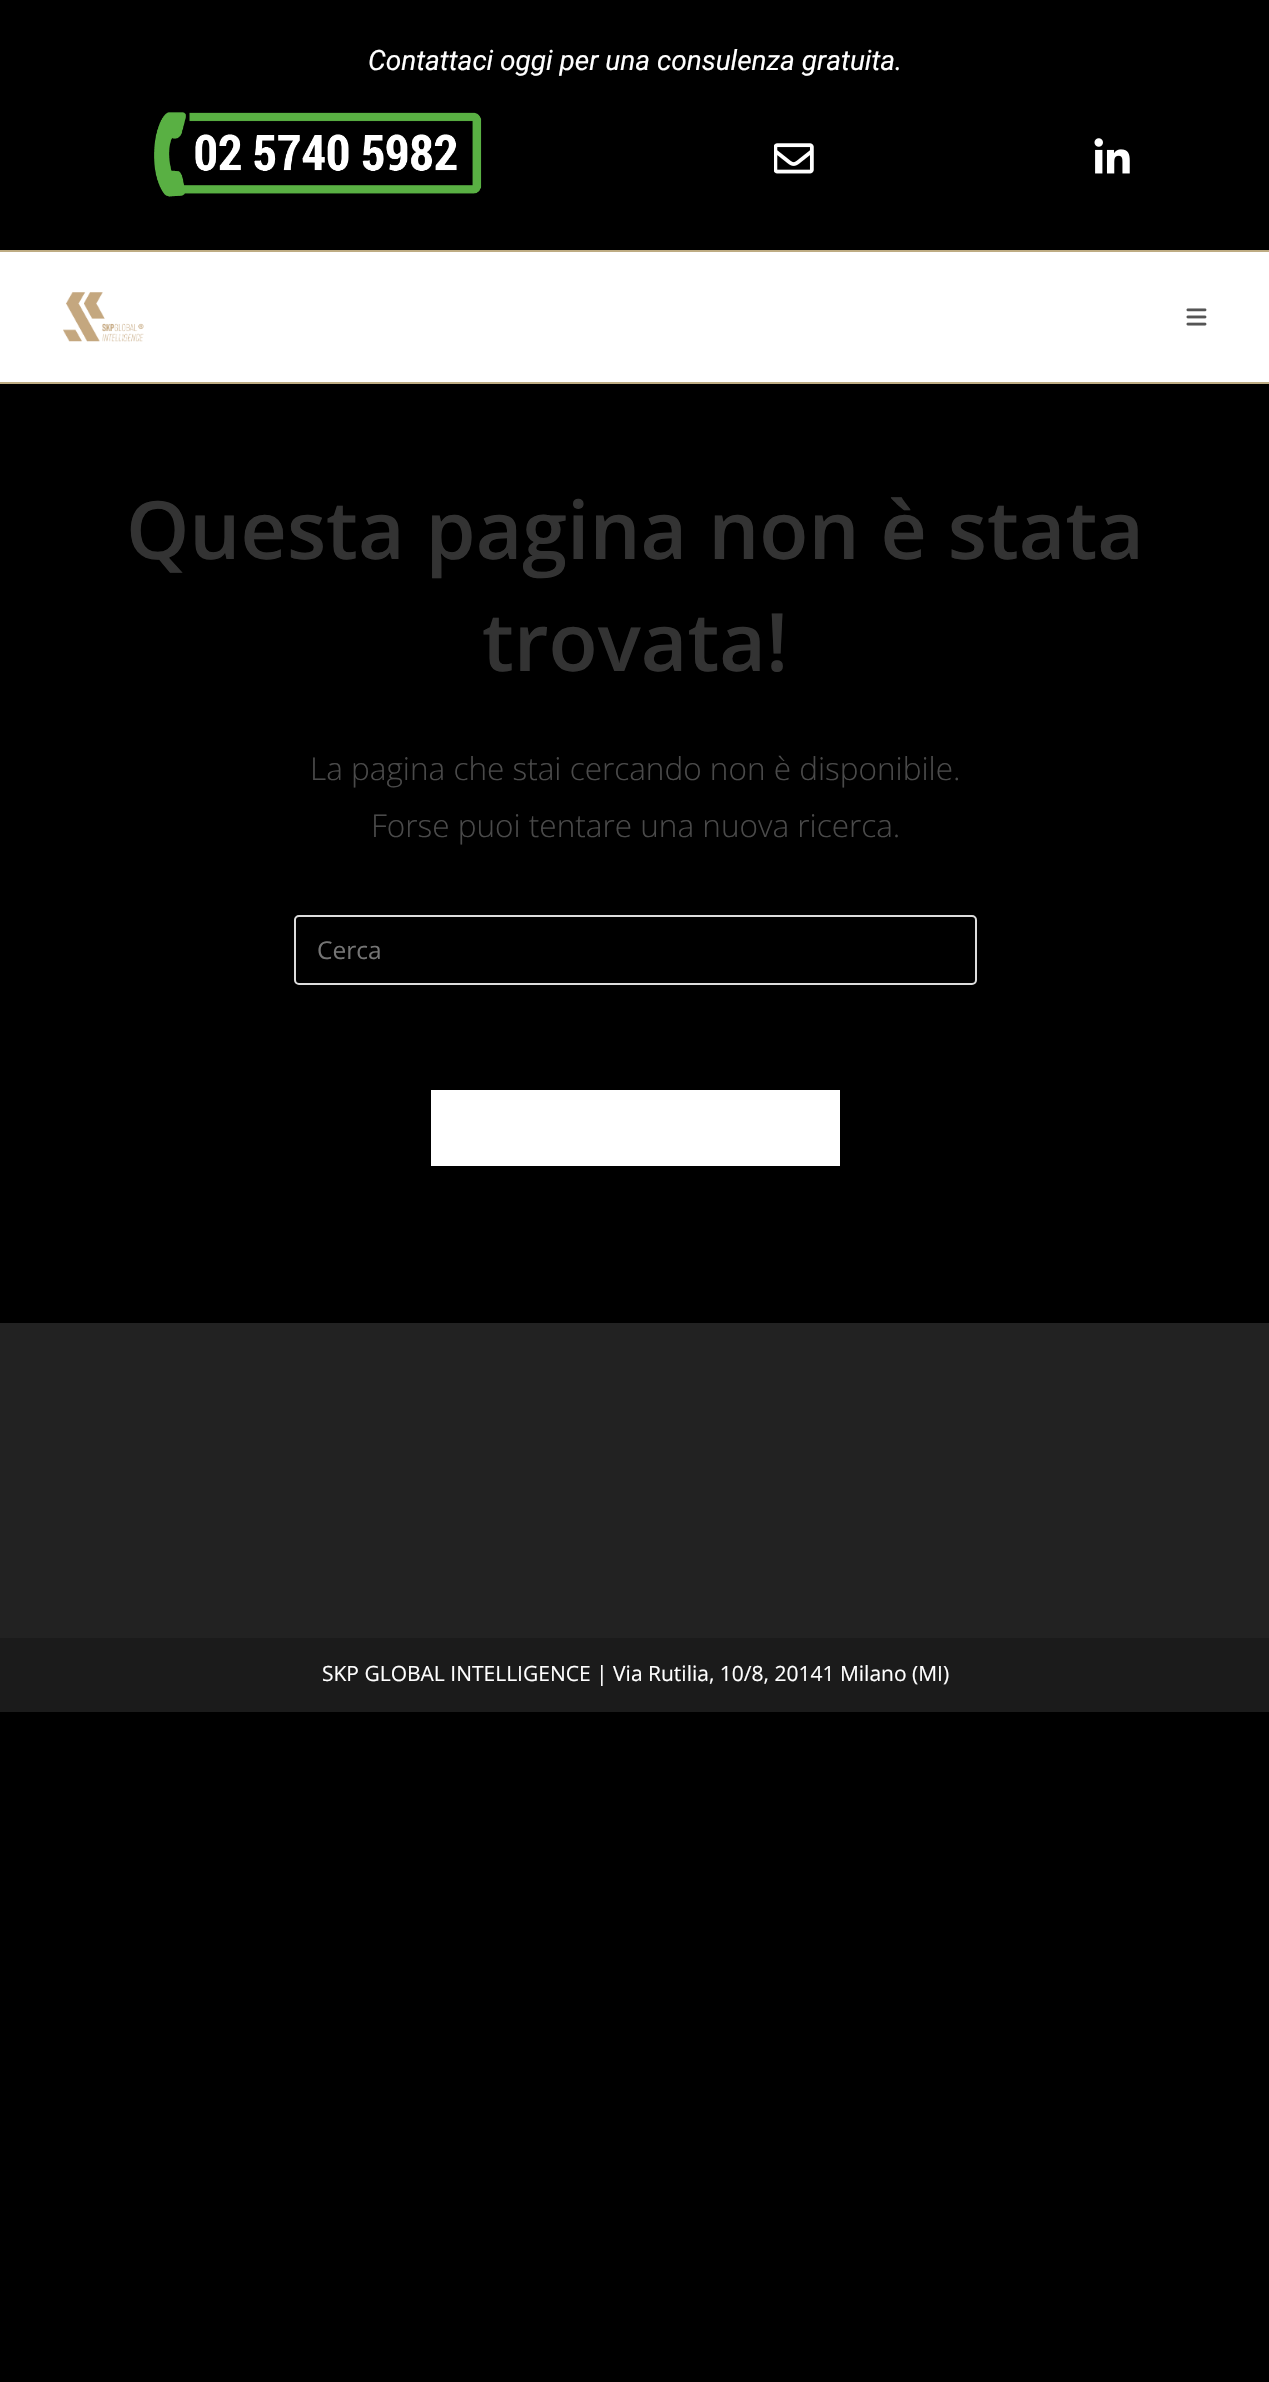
void draw(SkCanvas* canvas) {
    SkPaint paint;
    paint.setAntiAlias(true);
    auto face = [&](const char* family, int weight, float size, bool italic = false) {
        SkFontStyle style(weight, SkFontStyle::kNormal_Width,
            italic ? SkFontStyle::kItalic_Slant : SkFontStyle::kUpright_Slant);
        SkFont result(fontMgr->matchFamilyStyle(family, style), size);
        result.setSubpixel(true);
        return result;
    };
    auto write = [&](const char* s, float x, float y, const SkFont& font, SkColor color) {
        SkPaint ink(SkColor4f::FromColor(color));
        ink.setAntiAlias(true);
        canvas->drawString(s, x, y, font, ink);
    };
    auto block = [&](float x, float y, float w, float h, SkColor color) {
        SkPaint ink(SkColor4f::FromColor(color));
        ink.setAntiAlias(true);
        canvas->drawRect(SkRect::MakeXYWH(x, y, w, h), ink);
    };
    auto paste = [&](const char* path, float x, float y, float w, float h) {
        auto image = SkImages::DeferredFromEncodedData(SkData::MakeFromFileName(path));
        canvas->drawImageRect(image, SkRect::MakeXYWH(x, y, w, h), SkSamplingOptions());
    };
    canvas->clear(SK_ColorBLACK);
    block(0, 250, 1269, 2, SkColorSetRGB(190, 172, 131));
    auto kFont1 = face("Roboto", 400, 28, true);
    write("Contattaci oggi per una consulenza gratuita.", 368, 70, kFont1, SK_ColorWHITE);
    paste("pic1.png", 154, 112, 328, 85);
    paste("pic2.png", 774, 143, 40, 31);
    paste("pic3.png", 1094, 138, 36, 36);
    block(0, 252, 1269, 130, SK_ColorWHITE);
    block(0, 382, 1269, 2, SkColorSetRGB(190, 172, 131));
    paste("pic4.png", 63, 292, 81, 50);
    paste("pic5.png", 1186, 308, 21, 18);
    auto kFont2 = face("Open Sans", 600, 80.5f);
    write("Questa pagina non è stata", 126, 559, kFont2, SkColorSetRGB(51, 51, 51));
    write("trovata!", 482, 671, kFont2, SkColorSetRGB(51, 51, 51));
    auto kFont3 = face("Open Sans", 300, 31.5f);
    write("La pagina che stai cercando non è disponibile.", 310, 780, kFont3, SkColorSetRGB(74, 74, 74));
    write("Forse puoi tentare una nuova ricerca.", 371, 837, kFont3, SkColorSetRGB(74, 74, 74));
    paint.setStyle(SkPaint::kStroke_Style);
    paint.setStrokeWidth(2);
    paint.setColor(SkColorSetRGB(221, 221, 221));
    canvas->drawRoundRect(SkRect::MakeXYWH(295, 916, 681, 68), 4, 4, paint);
    auto kFont4 = face("Open Sans", 400, 24.5f);
    write("Cerca", 317, 959, kFont4, SkColorSetRGB(117, 117, 117));
    block(431, 1090, 409, 76, SK_ColorWHITE);
    block(0, 1323, 1269, 315, SkColorSetRGB(34, 34, 34));
    block(0, 1638, 1269, 74, SkColorSetRGB(27, 27, 27));
    auto kFont5 = face("Open Sans", 400, 21);
    write("SKP GLOBAL INTELLIGENCE | Via Rutilia, 10/8, 20141 Milano (MI)", 322, 1681, kFont5, SK_ColorWHITE);
}
